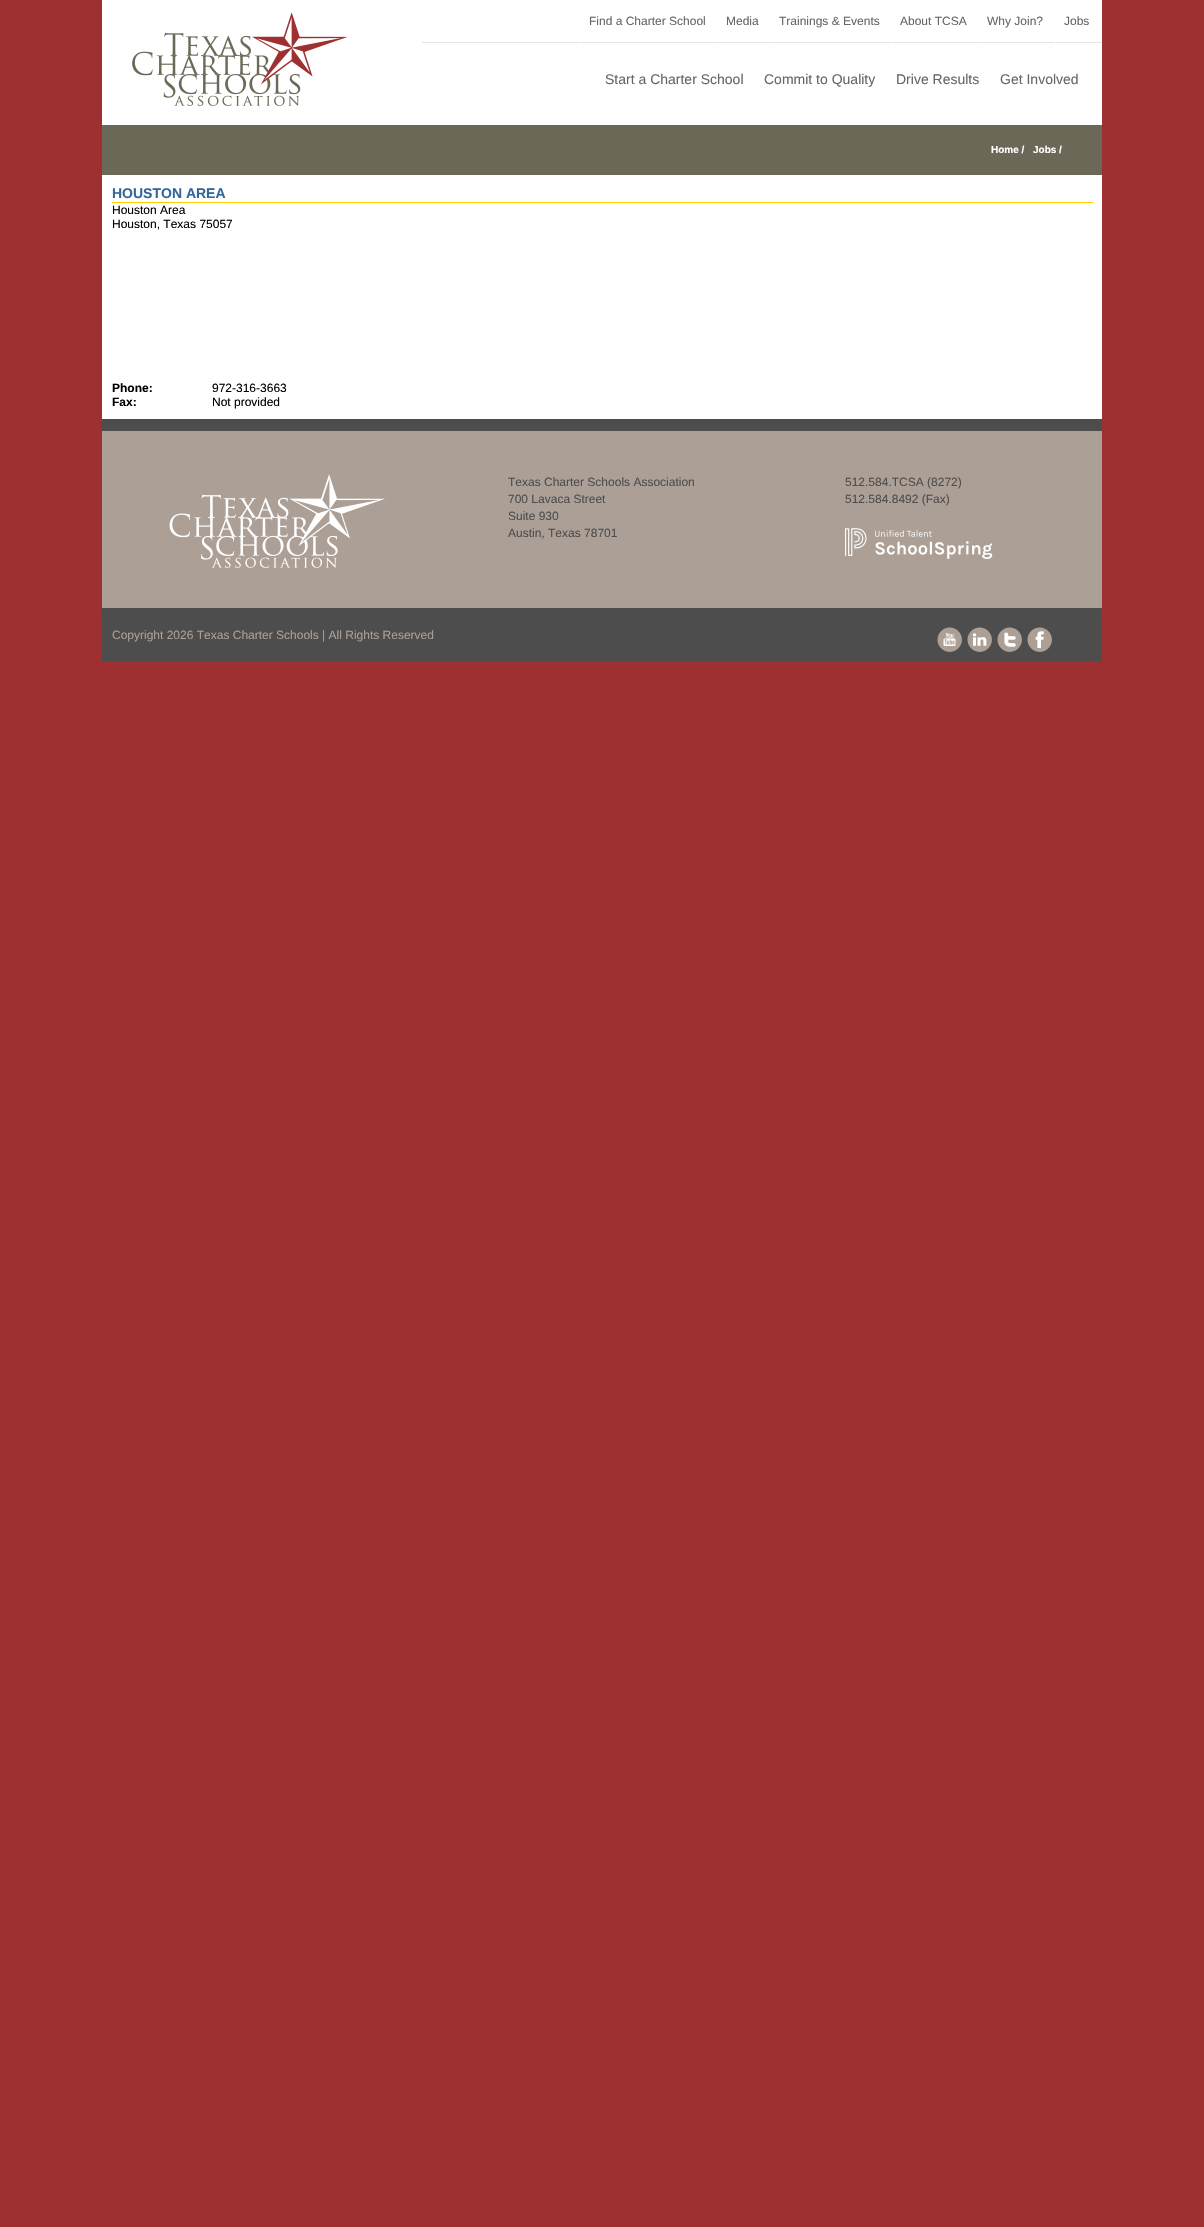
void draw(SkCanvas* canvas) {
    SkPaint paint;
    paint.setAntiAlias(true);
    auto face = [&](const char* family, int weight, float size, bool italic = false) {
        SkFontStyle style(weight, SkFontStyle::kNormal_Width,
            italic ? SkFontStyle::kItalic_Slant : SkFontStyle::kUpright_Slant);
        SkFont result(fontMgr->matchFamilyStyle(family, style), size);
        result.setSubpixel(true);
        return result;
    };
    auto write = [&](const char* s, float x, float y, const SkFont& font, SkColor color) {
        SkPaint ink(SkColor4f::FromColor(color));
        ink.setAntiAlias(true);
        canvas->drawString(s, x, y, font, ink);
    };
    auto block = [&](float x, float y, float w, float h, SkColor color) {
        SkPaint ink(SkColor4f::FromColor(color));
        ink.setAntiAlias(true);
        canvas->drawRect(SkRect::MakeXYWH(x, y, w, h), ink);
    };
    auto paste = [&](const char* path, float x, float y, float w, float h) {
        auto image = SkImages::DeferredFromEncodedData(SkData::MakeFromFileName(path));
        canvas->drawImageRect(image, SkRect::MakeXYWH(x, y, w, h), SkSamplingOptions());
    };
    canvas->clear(SkColorSetRGB(158, 48, 49));
    block(102, 0, 1000, 419, SK_ColorWHITE);
    paste("pic1.png", 132, 12, 216, 94);
    block(422, 42, 680, 1, SkColorSetRGB(229, 229, 229));
    block(580, 42, 1, 1, SK_ColorWHITE);
    auto kFont1 = face("Liberation Sans", 400, 12);
    write("Find a Charter School", 589, 25, kFont1, SkColorSetRGB(102, 102, 102));
    block(717, 42, 1, 1, SK_ColorWHITE);
    write("Media", 726, 25, kFont1, SkColorSetRGB(102, 102, 102));
    block(770, 42, 1, 1, SK_ColorWHITE);
    write("Trainings & Events", 779, 25, kFont1, SkColorSetRGB(102, 102, 102));
    block(891, 42, 1, 1, SK_ColorWHITE);
    write("About TCSA", 900, 25, kFont1, SkColorSetRGB(102, 102, 102));
    block(978, 42, 1, 1, SK_ColorWHITE);
    write("Why Join?", 987, 25, kFont1, SkColorSetRGB(102, 102, 102));
    block(1055, 42, 1, 1, SK_ColorWHITE);
    write("Jobs", 1064, 25, kFont1, SkColorSetRGB(102, 102, 102));
    auto kFont2 = face("Liberation Sans", 400, 14);
    write("Start a Charter School", 605, 84, kFont2, SkColorSetRGB(102, 102, 102));
    write("Commit to Quality", 764, 84, kFont2, SkColorSetRGB(102, 102, 102));
    write("Drive Results", 896, 84, kFont2, SkColorSetRGB(102, 102, 102));
    write("Get Involved", 1000, 84, kFont2, SkColorSetRGB(102, 102, 102));
    block(102, 125, 1000, 50, SkColorSetRGB(107, 104, 87));
    auto kFont3 = face("Liberation Sans", 700, 10);
    write("Home /", 991, 153, kFont3, SK_ColorWHITE);
    write("Jobs /", 1033, 153, kFont3, SK_ColorWHITE);
    block(112, 202, 981, 1, SkColorSetRGB(255, 204, 0));
    auto kFont4 = face("Liberation Sans", 700, 14);
    write("HOUSTON AREA", 112, 198, kFont4, SkColorSetRGB(51, 102, 153));
    write("Houston Area", 112, 214, kFont1, SK_ColorBLACK);
    write("Houston, Texas 75057", 112, 228, kFont1, SK_ColorBLACK);
    auto kFont5 = face("Liberation Sans", 700, 12);
    write("Phone:", 112, 392, kFont5, SK_ColorBLACK);
    write("972-316-3663", 212, 392, kFont1, SK_ColorBLACK);
    write("Fax:", 112, 406, kFont5, SK_ColorBLACK);
    write("Not provided", 212, 406, kFont1, SK_ColorBLACK);
    block(102, 431, 1000, 177, SkColorSetRGB(172, 159, 150));
    block(102, 419, 1000, 12, SkColorSetRGB(77, 77, 77));
    paste("pic2.png", 169, 474, 216, 94);
    write("Texas Charter Schools Association", 508, 486, kFont1, SkColorSetRGB(77, 77, 77));
    write("700 Lavaca Street", 508, 503, kFont1, SkColorSetRGB(77, 77, 77));
    write("Suite 930", 508, 520, kFont1, SkColorSetRGB(77, 77, 77));
    write("Austin, Texas 78701", 508, 537, kFont1, SkColorSetRGB(77, 77, 77));
    write("512.584.TCSA (8272)", 845, 486, kFont1, SkColorSetRGB(77, 77, 77));
    write("512.584.8492 (Fax)", 845, 503, kFont1, SkColorSetRGB(77, 77, 77));
    paste("pic3.png", 845, 528, 148, 31);
    block(102, 609, 1000, 52, SkColorSetRGB(77, 77, 77));
    block(102, 608, 1000, 1, SkColorSetRGB(75, 76, 77));
    write("Copyright 2026 Texas Charter Schools | All Rights Reserved", 112, 639, kFont1, SkColorSetRGB(172, 159, 149));
    paste("pic4.png", 937, 627, 25, 25);
    paste("pic5.png", 967, 627, 25, 25);
    paste("pic6.png", 997, 627, 25, 25);
    paste("pic7.png", 1027, 627, 25, 25);
}
